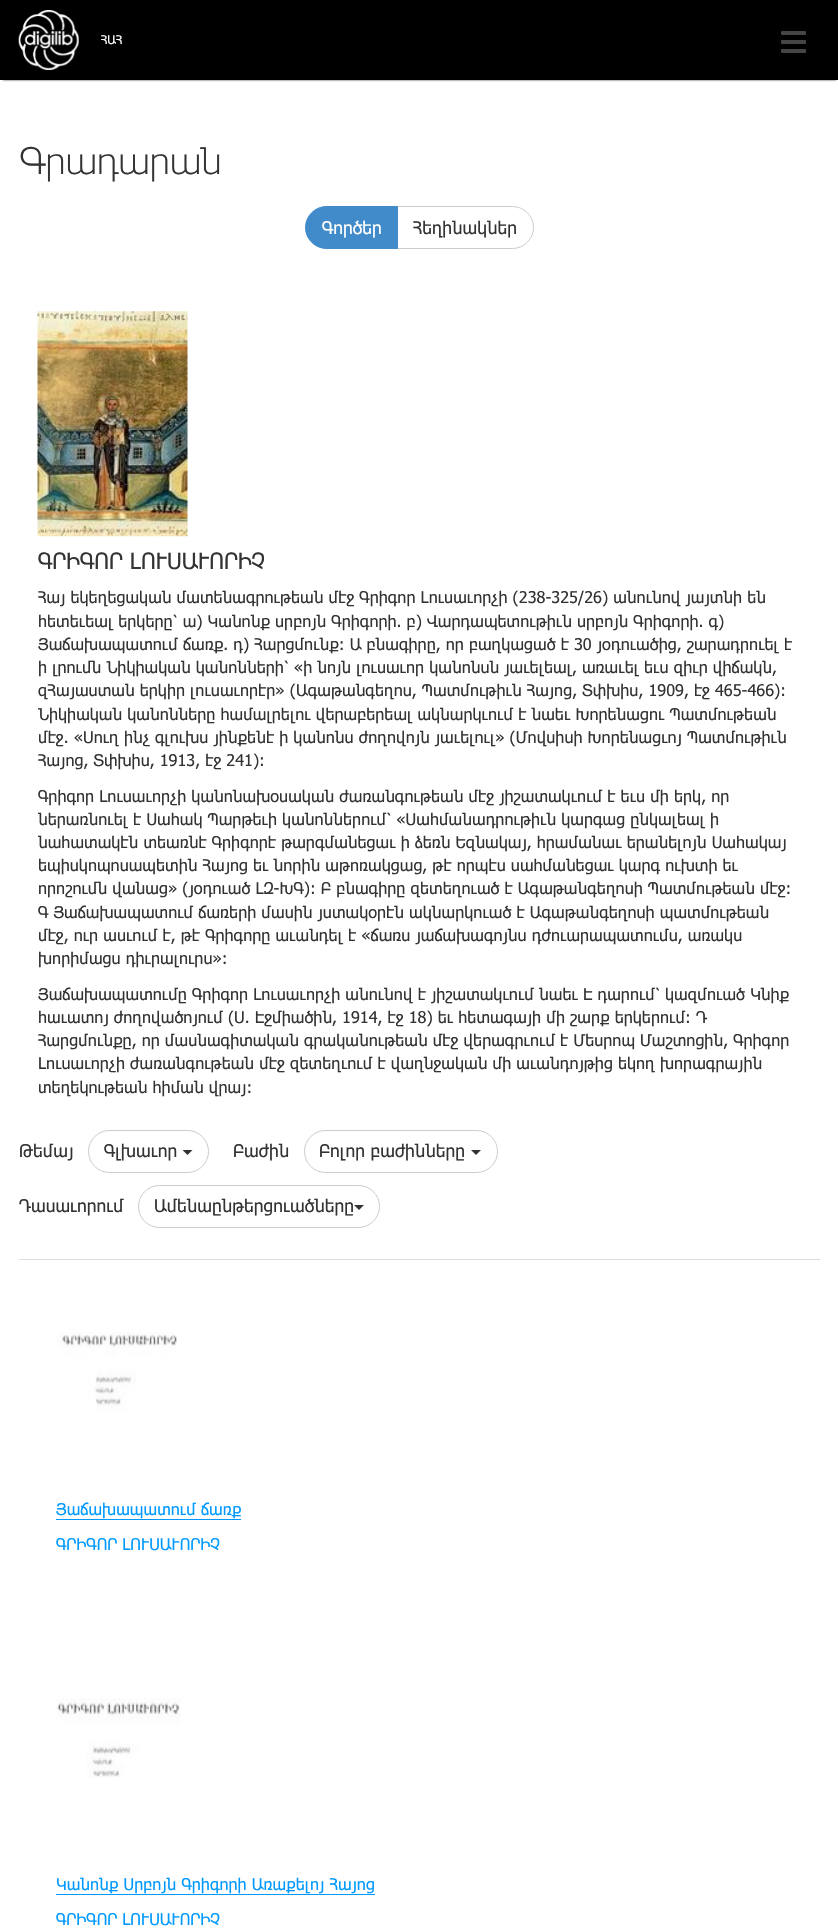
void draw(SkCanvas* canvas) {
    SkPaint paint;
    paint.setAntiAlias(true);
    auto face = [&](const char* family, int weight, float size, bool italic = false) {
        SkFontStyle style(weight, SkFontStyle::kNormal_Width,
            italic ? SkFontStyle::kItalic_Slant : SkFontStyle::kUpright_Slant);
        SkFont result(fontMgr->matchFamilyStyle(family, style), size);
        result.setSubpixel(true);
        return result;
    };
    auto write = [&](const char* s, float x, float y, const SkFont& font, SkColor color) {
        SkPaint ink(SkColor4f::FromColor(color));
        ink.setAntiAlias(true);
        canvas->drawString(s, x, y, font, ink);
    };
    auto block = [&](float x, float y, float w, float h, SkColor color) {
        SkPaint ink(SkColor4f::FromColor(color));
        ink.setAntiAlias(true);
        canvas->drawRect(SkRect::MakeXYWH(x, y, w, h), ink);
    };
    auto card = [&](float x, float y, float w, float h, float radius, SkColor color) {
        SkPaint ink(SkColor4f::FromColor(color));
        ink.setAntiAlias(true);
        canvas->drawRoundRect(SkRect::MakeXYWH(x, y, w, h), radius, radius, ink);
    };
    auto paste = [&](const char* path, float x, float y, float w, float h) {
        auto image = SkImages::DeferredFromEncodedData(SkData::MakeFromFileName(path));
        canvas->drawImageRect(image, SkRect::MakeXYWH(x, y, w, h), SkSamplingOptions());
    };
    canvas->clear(SK_ColorWHITE);
    paint.setColor(SkColorSetARGB(204, 0, 0, 0));
    paint.setMaskFilter(SkMaskFilter::MakeBlur(kNormal_SkBlurStyle, 1));
    canvas->drawRect(SkRect::MakeXYWH(3, 5, 833, 75), paint);
    paint.setMaskFilter(nullptr);
    block(0, 0, 838, 80, SK_ColorBLACK);
    paste("pic1.png", 18, 10, 61, 60);
    auto kFont1 = face("Tahoma", 400, 12);
    write("ՀԱՀ", 101, 44, kFont1, SK_ColorWHITE);
    card(781, 31, 25, 4, 1, SkColorSetRGB(69, 69, 69));
    card(781, 40, 25, 4, 1, SkColorSetRGB(69, 69, 69));
    card(781, 49, 25, 4, 1, SkColorSetRGB(69, 69, 69));
    auto kFont2 = face("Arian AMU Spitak", 400, 37.5f);
    write("Գրադարան", 19, 174, kFont2, SkColorSetRGB(51, 51, 51));
    paint.setStyle(SkPaint::kStroke_Style);
    paint.setStrokeWidth(1);
    paint.setColor(SkColorSetRGB(204, 204, 204));
    canvas->drawPath(SkPathBuilder().moveTo(396.5f, 206.5f).lineTo(512.5f, 206.5f).cubicTo(524, 206.5f, 533.5f, 216, 533.5f, 227.5f).cubicTo(533.5f, 239, 524, 248.5f, 512.5f, 248.5f).lineTo(396.5f, 248.5f).close().detach(), paint);
    paint.setStyle(SkPaint::kFill_Style);
    paint.setColor(SkColorSetRGB(66, 139, 202));
    canvas->drawPath(SkPathBuilder().moveTo(326.5f, 206.5f).lineTo(397.5f, 206.5f).lineTo(397.5f, 248.5f).lineTo(326.5f, 248.5f).cubicTo(315, 248.5f, 305.5f, 239, 305.5f, 227.5f).cubicTo(305.5f, 216, 315, 206.5f, 326.5f, 206.5f).close().detach(), paint);
    paint.setStyle(SkPaint::kStroke_Style);
    canvas->drawPath(SkPathBuilder().moveTo(326.5f, 206.5f).lineTo(397.5f, 206.5f).lineTo(397.5f, 248.5f).lineTo(326.5f, 248.5f).cubicTo(315, 248.5f, 305.5f, 239, 305.5f, 227.5f).cubicTo(305.5f, 216, 315, 206.5f, 326.5f, 206.5f).close().detach(), paint);
    auto kFont3 = face("Tahoma", 400, 17.5f);
    write("Գործեր", 322, 234, kFont3, SK_ColorWHITE);
    write("Հեղինակներ", 413, 234, kFont3, SkColorSetRGB(51, 51, 51));
    block(19, 1259, 801, 1, SkColorSetRGB(221, 221, 221));
    paste("pic2.png", 37, 311, 151, 226);
    auto kFont4 = face("Tahoma", 400, 22.5f);
    write("ԳՐԻԳՈՐ ԼՈՒՍԱՒՈՐԻՉ", 38, 569, kFont4, SkColorSetRGB(51, 51, 51));
    auto kFont5 = face("Tahoma", 400, 16.25f);
    write("Հայ եկեղեցական մատենագրութեան մէջ Գրիգոր Լուսաւորչի (238-325/26) անունով յայտնի են", 38, 603, kFont5, SkColorSetRGB(51, 51, 51));
    write("հետեւեալ երկերը՝ ա) Կանոնք սրբոյն Գրիգորի. բ) Վարդապետութիւն սրբոյն Գրիգորի. գ)", 38, 627, kFont5, SkColorSetRGB(51, 51, 51));
    write("Յաճախապատում ճառք. դ) Հարցմունք։ Ա բնագիրը, որ բաղկացած է 30 յօդուածից, շարադրուել է", 38, 650, kFont5, SkColorSetRGB(51, 51, 51));
    write("ի լրումն Նիկիական կանոնների՝ «ի նոյն լուսաւոր կանոնսն յաւելեալ, առաւել եւս զիւր վիճակն,", 38, 673, kFont5, SkColorSetRGB(51, 51, 51));
    write("զՀայաստան երկիր լուսաւորէր» (Ագաթանգեղոս, Պատմութիւն Հայոց, Տփխիս, 1909, էջ 465-466)։", 38, 696, kFont5, SkColorSetRGB(51, 51, 51));
    write("Նիկիական կանոնները համալրելու վերաբերեալ ակնարկւում է նաեւ Խորենացու Պատմութեան", 38, 720, kFont5, SkColorSetRGB(51, 51, 51));
    write("մէջ. «Սուղ ինչ գլուխս յինքենէ ի կանոնս ժողովոյն յաւելուլ» (Մովսիսի Խորենացւոյ Պատմութիւն", 38, 743, kFont5, SkColorSetRGB(51, 51, 51));
    write("Հայոց, Տփխիս, 1913, էջ 241)։", 38, 766, kFont5, SkColorSetRGB(51, 51, 51));
    write("Գրիգոր Լուսաւորչի կանոնախօսական ժառանգութեան մէջ յիշատակւում է եւս մի երկ, որ", 38, 802, kFont5, SkColorSetRGB(51, 51, 51));
    write("ներառնուել է Սահակ Պարթեւի կանոններում՝ «Սահմանադրութիւն կարգաց ընկալեալ ի", 38, 825, kFont5, SkColorSetRGB(51, 51, 51));
    write("նահատակէն տեառնէ Գրիգորէ թարգմանեցաւ ի ձեռն Եզնակայ, հրամանաւ երանելոյն Սահակայ", 38, 848, kFont5, SkColorSetRGB(51, 51, 51));
    write("եպիսկոպոսապետին Հայոց եւ նորին աթոռակցաց, թէ որպէս սահմանեցաւ կարգ ուխտի եւ", 38, 871, kFont5, SkColorSetRGB(51, 51, 51));
    write("որոշումն վանաց» (յօդուած ԼԶ-ԽԳ)։ Բ բնագիրը զետեղուած է Ագաթանգեղոսի Պատմութեան մէջ։", 38, 894, kFont5, SkColorSetRGB(51, 51, 51));
    write("Գ Յաճախապատում ճառերի մասին յստակօրէն ակնարկուած է Ագաթանգեղոսի պատմութեան", 38, 918, kFont5, SkColorSetRGB(51, 51, 51));
    write("մէջ, ուր ասւում է, թէ Գրիգորը աւանդել է «ճառս յաճախագոյնս դժուարապատումս, առակս", 38, 941, kFont5, SkColorSetRGB(51, 51, 51));
    write("խորիմացս դիւրալուրս»։", 38, 964, kFont5, SkColorSetRGB(51, 51, 51));
    write("Յաճախապատումը Գրիգոր Լուսաւորչի անունով է յիշատակւում նաեւ Է դարում՝ կազմուած Կնիք", 38, 1000, kFont5, SkColorSetRGB(51, 51, 51));
    write("հաւատոյ ժողովածոյում (Ս. Էջմիածին, 1914, էջ 18) եւ հետագայի մի շարք երկերում։ Դ", 38, 1023, kFont5, SkColorSetRGB(51, 51, 51));
    write("Հարցմունքը, որ մասնագիտական գրականութեան մէջ վերագրւում է Մեսրոպ Մաշտոցին, Գրիգոր", 38, 1046, kFont5, SkColorSetRGB(51, 51, 51));
    write("Լուսաւորչի ժառանգութեան մէջ զետեղւում է վաղնջական մի աւանդոյթից եկող խորագրային", 38, 1069, kFont5, SkColorSetRGB(51, 51, 51));
    write("տեղեկութեան հիման վրայ:", 38, 1093, kFont5, SkColorSetRGB(51, 51, 51));
    write("Թեմայ", 19, 1157, kFont3, SkColorSetRGB(51, 51, 51));
    paint.setColor(SkColorSetRGB(204, 204, 204));
    canvas->drawRoundRect(SkRect::MakeXYWH(88.5f, 1130.5f, 120, 42), 21, 21, paint);
    write("Գլխաւոր", 104, 1157, kFont3, SkColorSetRGB(51, 51, 51));
    paint.setStyle(SkPaint::kFill_Style);
    paint.setColor(SkColorSetRGB(51, 51, 51));
    canvas->drawPath(SkPathBuilder().moveTo(182.5f, 1150).lineTo(192.5f, 1150).lineTo(187.5f, 1155).close().detach(), paint);
    write("Բաժին", 233, 1157, kFont3, SkColorSetRGB(51, 51, 51));
    paint.setStyle(SkPaint::kStroke_Style);
    paint.setColor(SkColorSetRGB(204, 204, 204));
    canvas->drawRoundRect(SkRect::MakeXYWH(304.5f, 1130.5f, 193, 42), 21, 21, paint);
    write("Բոլոր բաժինները", 319, 1157, kFont3, SkColorSetRGB(51, 51, 51));
    paint.setStyle(SkPaint::kFill_Style);
    paint.setColor(SkColorSetRGB(51, 51, 51));
    canvas->drawPath(SkPathBuilder().moveTo(471, 1150).lineTo(481, 1150).lineTo(476, 1155).close().detach(), paint);
    write("Դասաւորում", 19, 1212, kFont3, SkColorSetRGB(51, 51, 51));
    paint.setStyle(SkPaint::kStroke_Style);
    paint.setColor(SkColorSetRGB(204, 204, 204));
    canvas->drawRoundRect(SkRect::MakeXYWH(138.5f, 1185.5f, 241, 42), 21, 21, paint);
    write("Ամենաընթերցուածները", 154, 1212, kFont3, SkColorSetRGB(51, 51, 51));
    paint.setStyle(SkPaint::kFill_Style);
    paint.setColor(SkColorSetRGB(51, 51, 51));
    canvas->drawPath(SkPathBuilder().moveTo(354, 1205).lineTo(364, 1205).lineTo(359, 1210).close().detach(), paint);
    paste("pic3.png", 57, 1332, 120, 79);
    write("Յաճախապատում ճառք", 56, 1515, kFont5, SkColorSetRGB(0, 153, 255));
    block(56, 1519, 185, 1, SkColorSetRGB(0, 153, 255));
    write("ԳՐԻԳՈՐ ԼՈՒՍԱՒՈՐԻՉ", 56, 1550, kFont5, SkColorSetRGB(0, 153, 255));
    paste("pic4.png", 57, 1698, 124, 80);
    write("Կանոնք Սրբոյն Գրիգորի Առաքելոյ Հայոց", 56, 1890, kFont5, SkColorSetRGB(0, 153, 255));
    block(56, 1894, 319, 1, SkColorSetRGB(0, 153, 255));
    write("ԳՐԻԳՈՐ ԼՈՒՍԱՒՈՐԻՉ", 56, 1925, kFont5, SkColorSetRGB(0, 153, 255));
}
